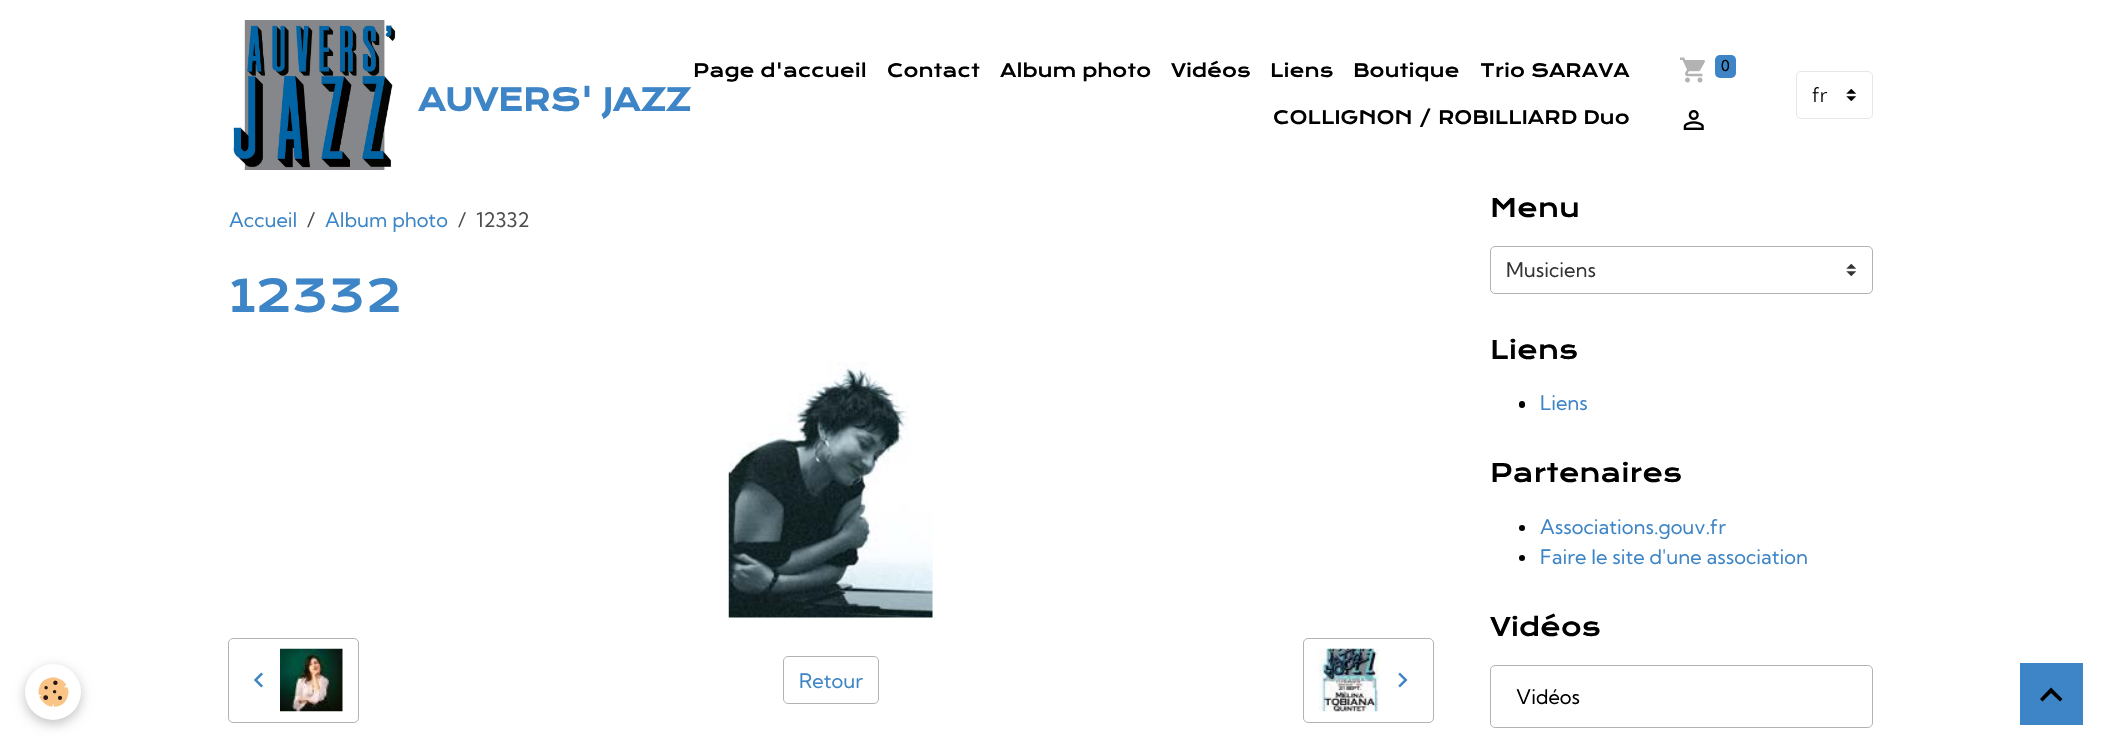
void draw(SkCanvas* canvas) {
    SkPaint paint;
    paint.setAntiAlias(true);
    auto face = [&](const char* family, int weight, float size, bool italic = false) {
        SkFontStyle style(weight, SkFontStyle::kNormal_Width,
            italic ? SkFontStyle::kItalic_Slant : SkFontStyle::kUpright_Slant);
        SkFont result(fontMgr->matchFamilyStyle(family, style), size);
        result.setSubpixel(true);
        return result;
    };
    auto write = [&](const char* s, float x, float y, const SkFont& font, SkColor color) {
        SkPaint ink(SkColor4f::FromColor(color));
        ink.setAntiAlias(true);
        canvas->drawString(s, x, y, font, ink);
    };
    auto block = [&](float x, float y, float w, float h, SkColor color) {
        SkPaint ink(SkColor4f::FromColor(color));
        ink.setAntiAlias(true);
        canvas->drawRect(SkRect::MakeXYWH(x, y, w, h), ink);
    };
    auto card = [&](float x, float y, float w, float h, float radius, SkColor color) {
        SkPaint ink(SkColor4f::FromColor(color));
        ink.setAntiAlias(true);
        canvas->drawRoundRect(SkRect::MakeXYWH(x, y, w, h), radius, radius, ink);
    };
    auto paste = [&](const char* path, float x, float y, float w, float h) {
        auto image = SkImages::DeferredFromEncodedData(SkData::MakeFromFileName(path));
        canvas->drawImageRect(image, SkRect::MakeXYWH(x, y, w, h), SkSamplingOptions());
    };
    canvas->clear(SK_ColorWHITE);
    paste("pic1.png", 233, 20, 163, 150);
    auto kFont1 = face("Krona One", 700, 30);
    write("AUVERS' JAZZ", 418, 111, kFont1, SkColorSetRGB(61, 133, 198));
    auto kFont2 = face("Krona One", 400, 18);
    write("Page d'accueil", 693, 77, kFont2, SK_ColorBLACK);
    write("Contact", 887, 77, kFont2, SK_ColorBLACK);
    write("Album photo", 1000, 77, kFont2, SK_ColorBLACK);
    write("Vidéos", 1171, 77, kFont2, SK_ColorBLACK);
    write("Liens", 1270, 77, kFont2, SK_ColorBLACK);
    write("Boutique", 1353, 77, kFont2, SK_ColorBLACK);
    write("Trio SARAVA", 1480, 77, kFont2, SK_ColorBLACK);
    write("COLLIGNON / ROBILLIARD Duo", 1273, 124, kFont2, SK_ColorBLACK);
    paste("pic2.png", 1680, 57, 25, 26);
    card(1715, 55, 21, 23, 5, SkColorSetRGB(61, 133, 198));
    auto kFont3 = face("Kumbh Sans", 400, 15);
    write("0", 1721, 71, kFont3, SK_ColorBLACK);
    paste("pic3.png", 1683, 110, 21, 20);
    paste("pic4.png", 1846, 89, 10, 12);
    paint.setStyle(SkPaint::kStroke_Style);
    paint.setStrokeWidth(1);
    paint.setColor(SkColorSetRGB(230, 230, 230));
    canvas->drawRoundRect(SkRect::MakeXYWH(1796.5f, 71.5f, 76, 47), 4.5f, 4.5f, paint);
    auto kFont4 = face("Kumbh Sans", 300, 20);
    write("fr", 1812, 102, kFont4, SK_ColorBLACK);
    paint.setStyle(SkPaint::kFill_Style);
    paint.setColor(SkColorSetARGB(61, 0, 0, 0));
    paint.setMaskFilter(SkMaskFilter::MakeBlur(kNormal_SkBlurStyle, 6));
    canvas->drawRoundRect(SkRect::MakeXYWH(25, 668, 56, 56), 28, 28, paint);
    paint.setMaskFilter(nullptr);
    paint.setColor(SK_ColorWHITE);
    canvas->drawCircle(53, 692, 28, paint);
    paste("pic5.png", 38, 677, 31, 30);
    auto kFont5 = face("Kumbh Sans", 400, 20);
    write("Accueil", 229, 227, kFont5, SkColorSetRGB(61, 133, 198));
    write("/", 307, 227, kFont5, SkColorSetRGB(77, 77, 77));
    write("Album photo", 325, 227, kFont5, SkColorSetRGB(61, 133, 198));
    write("/", 458, 227, kFont5, SkColorSetRGB(77, 77, 77));
    write("12332", 476, 227, kFont5, SkColorSetRGB(77, 77, 77));
    auto kFont6 = face("Krona One", 400, 44);
    write("12332", 229, 312, kFont6, SkColorSetRGB(61, 133, 198));
    paste("pic6.png", 728, 362, 205, 256);
    paint.setStyle(SkPaint::kStroke_Style);
    paint.setColor(SkColorSetRGB(179, 179, 179));
    canvas->drawRoundRect(SkRect::MakeXYWH(228.5f, 638.5f, 130, 84), 4.5f, 4.5f, paint);
    paste("pic7.png", 253, 672, 10, 16);
    paste("pic8.png", 280, 648, 63, 64);
    canvas->drawRoundRect(SkRect::MakeXYWH(783.5f, 656.5f, 95, 47), 4.5f, 4.5f, paint);
    write("Retour", 799, 688, kFont5, SkColorSetRGB(61, 133, 198));
    canvas->drawRoundRect(SkRect::MakeXYWH(1303.5f, 638.5f, 130, 84), 4.5f, 4.5f, paint);
    paste("pic9.png", 1318, 648, 62, 64);
    paste("pic10.png", 1398, 672, 10, 16);
    auto kFont7 = face("Krona One", 400, 25);
    write("Menu", 1490, 217, kFont7, SK_ColorBLACK);
    paste("pic11.png", 1846, 264, 10, 12);
    canvas->drawRoundRect(SkRect::MakeXYWH(1490.5f, 246.5f, 382, 47), 4.5f, 4.5f, paint);
    write("Musiciens", 1506, 277, kFont5, SkColorSetRGB(51, 51, 51));
    write("Liens", 1490, 359, kFont7, SK_ColorBLACK);
    card(1519, 401, 6, 7, 3, SK_ColorBLACK);
    write("Liens", 1540, 410, kFont5, SkColorSetRGB(61, 133, 198));
    write("Partenaires", 1490, 482, kFont7, SK_ColorBLACK);
    paint.setStyle(SkPaint::kFill_Style);
    paint.setColor(SK_ColorBLACK);
    canvas->drawCircle(1522, 528, 3, paint);
    write("Associations.gouv.fr", 1540, 534, kFont5, SkColorSetRGB(61, 133, 198));
    canvas->drawCircle(1522, 558, 3, paint);
    write("Faire le site d'une association", 1540, 564, kFont5, SkColorSetRGB(61, 133, 198));
    write("Vidéos", 1490, 636, kFont7, SK_ColorBLACK);
    paint.setStyle(SkPaint::kStroke_Style);
    paint.setColor(SkColorSetRGB(179, 179, 179));
    canvas->drawRoundRect(SkRect::MakeXYWH(1490.5f, 665.5f, 382, 62), 4.5f, 4.5f, paint);
    write("Vidéos", 1516, 704, kFont5, SK_ColorBLACK);
    block(2020, 663, 63, 62, SkColorSetRGB(61, 133, 198));
    paint.setStyle(SkPaint::kFill_Style);
    paint.setColor(SK_ColorBLACK);
    canvas->drawPath(SkPathBuilder().moveTo(2051, 687.5f).lineTo(2062.5f, 699).lineTo(2060, 701.5f).lineTo(2051, 693).lineTo(2042.5f, 701.5f).lineTo(2040, 699).close().detach(), paint);
}
